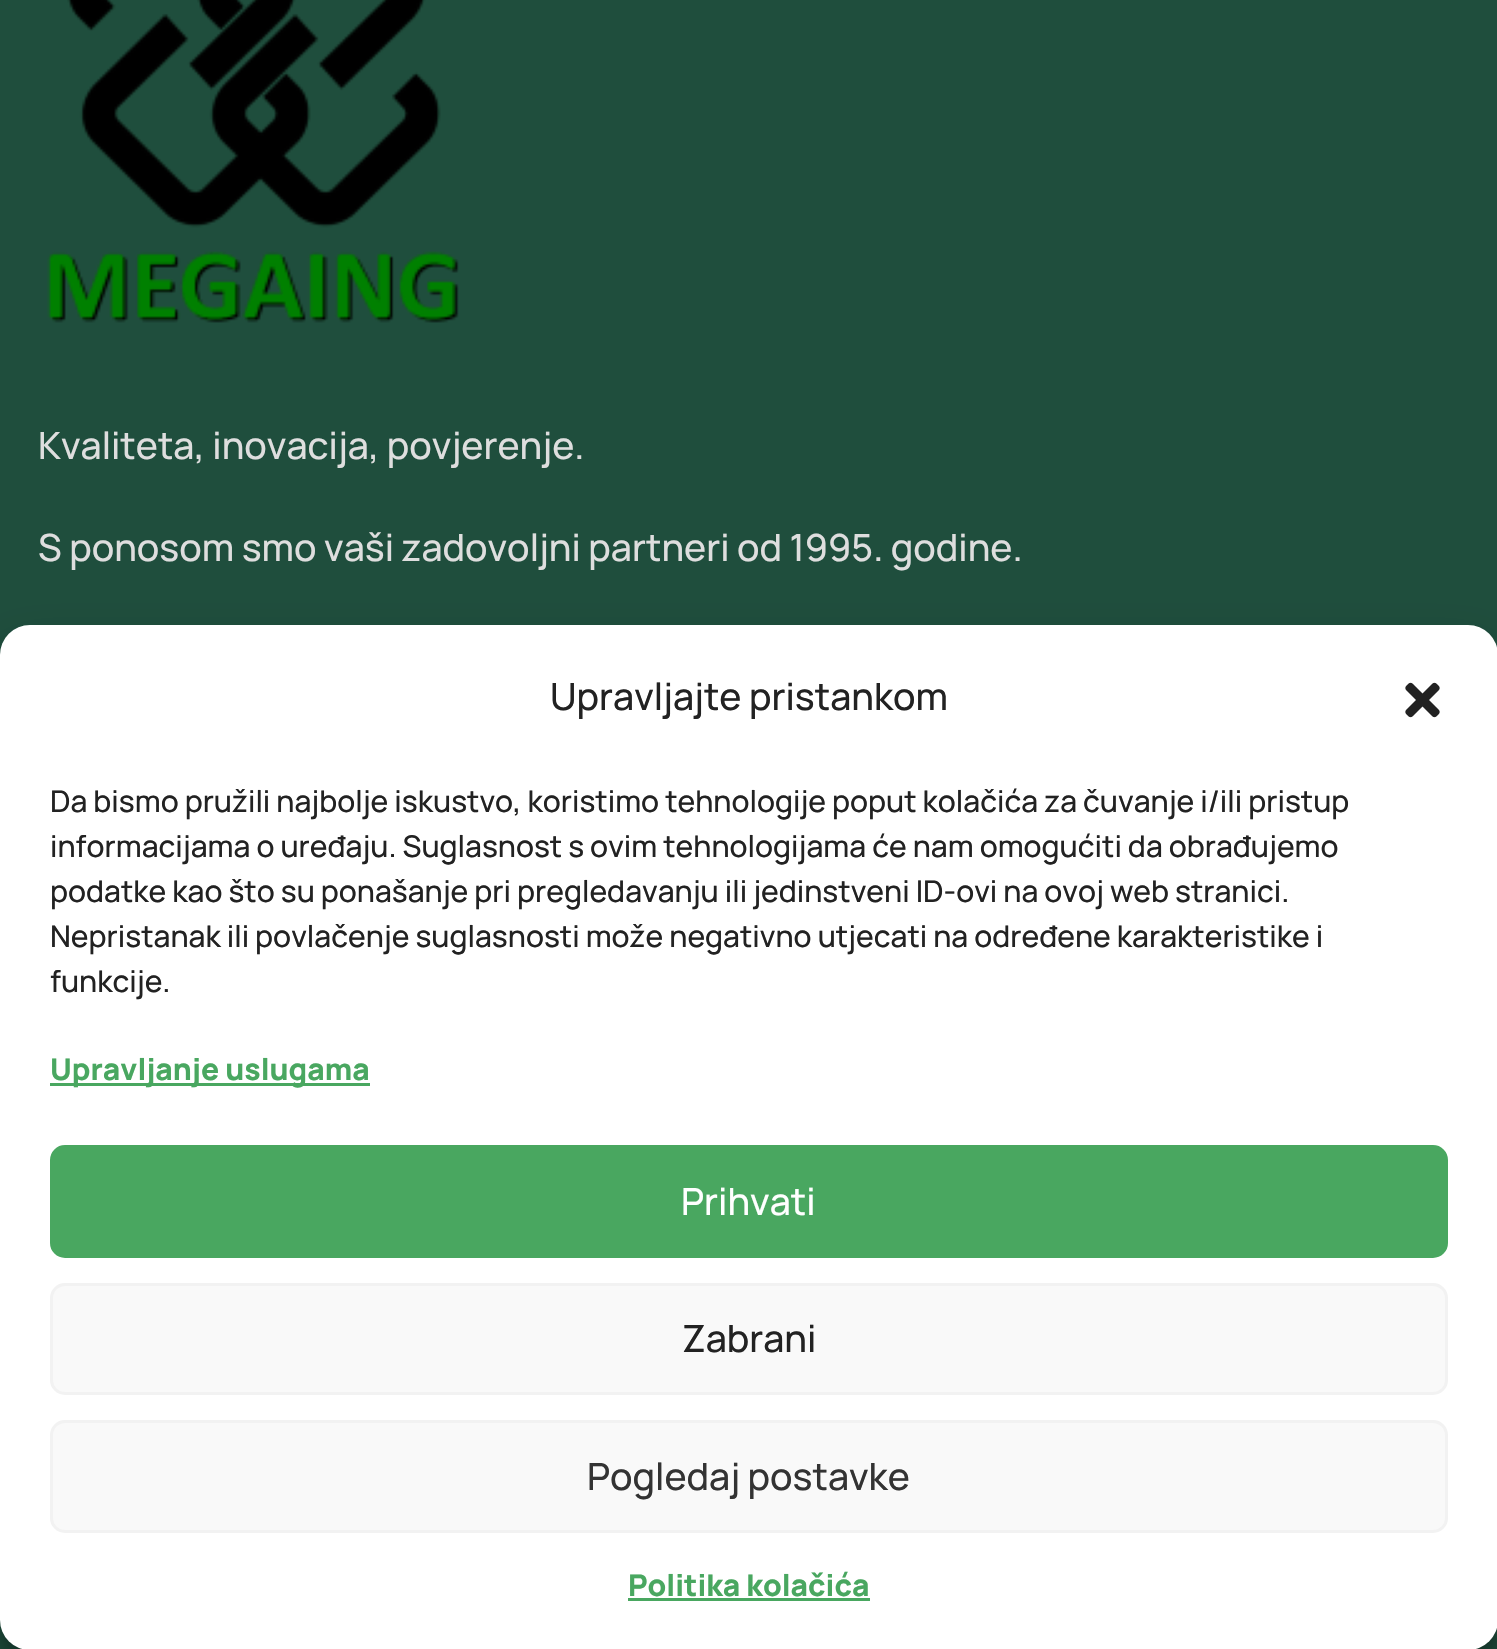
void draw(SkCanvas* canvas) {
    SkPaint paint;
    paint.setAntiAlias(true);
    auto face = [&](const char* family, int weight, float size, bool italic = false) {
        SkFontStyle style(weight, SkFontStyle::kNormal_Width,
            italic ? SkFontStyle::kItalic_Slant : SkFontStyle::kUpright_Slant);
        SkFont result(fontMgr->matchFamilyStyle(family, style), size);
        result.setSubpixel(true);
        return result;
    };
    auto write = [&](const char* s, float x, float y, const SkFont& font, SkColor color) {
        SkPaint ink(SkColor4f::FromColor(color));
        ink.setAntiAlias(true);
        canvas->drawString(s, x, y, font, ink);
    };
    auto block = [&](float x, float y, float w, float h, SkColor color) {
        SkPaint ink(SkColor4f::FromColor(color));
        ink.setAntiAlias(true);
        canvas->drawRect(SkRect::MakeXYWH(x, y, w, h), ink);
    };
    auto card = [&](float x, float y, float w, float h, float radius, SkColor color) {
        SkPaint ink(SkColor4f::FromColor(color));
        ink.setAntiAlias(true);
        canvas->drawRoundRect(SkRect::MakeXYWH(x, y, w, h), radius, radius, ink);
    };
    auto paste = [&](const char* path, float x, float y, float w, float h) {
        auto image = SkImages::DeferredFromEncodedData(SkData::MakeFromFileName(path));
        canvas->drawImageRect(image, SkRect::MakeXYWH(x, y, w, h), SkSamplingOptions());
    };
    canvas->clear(SkColorSetRGB(31, 78, 61));
    paste("pic1.png", 47, 0, 412, 323);
    auto kFont1 = face("Manrope", 500, 37.5f);
    write("Kvaliteta, inovacija, povjerenje.", 38, 459, kFont1, SkColorSetRGB(222, 222, 222));
    write("S ponosom smo vaši zadovoljni partneri od 1995. godine.", 38, 561, kFont1, SkColorSetRGB(222, 222, 222));
    paint.setColor(SkColorSetARGB(59, 0, 0, 0));
    paint.setMaskFilter(SkMaskFilter::MakeBlur(kNormal_SkBlurStyle, 7.5f));
    canvas->drawRoundRect(SkRect::MakeXYWH(0, 640, 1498, 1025), 30, 30, paint);
    paint.setMaskFilter(nullptr);
    paint.setColor(SkColorSetARGB(48, 0, 0, 0));
    paint.setMaskFilter(SkMaskFilter::MakeBlur(kNormal_SkBlurStyle, 25));
    canvas->drawRoundRect(SkRect::MakeXYWH(0, 650, 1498, 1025), 30, 30, paint);
    paint.setMaskFilter(nullptr);
    card(0, 625, 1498, 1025, 30, SK_ColorWHITE);
    write("Upravljajte pristankom", 550, 710, kFont1, SkColorSetRGB(34, 34, 34));
    paste("pic2.png", 1405, 682, 35, 36);
    auto kFont2 = face("Manrope", 500, 30);
    write("Da bismo pružili najbolje iskustvo, koristimo tehnologije poput kolačića za čuvanje i/ili pristup", 50, 812, kFont2, SkColorSetRGB(34, 34, 34));
    write("informacijama o uređaju. Suglasnost s ovim tehnologijama će nam omogućiti da obrađujemo", 50, 857, kFont2, SkColorSetRGB(34, 34, 34));
    write("podatke kao što su ponašanje pri pregledavanju ili jedinstveni ID-ovi na ovoj web stranici.", 50, 902, kFont2, SkColorSetRGB(34, 34, 34));
    write("Nepristanak ili povlačenje suglasnosti može negativno utjecati na određene karakteristike i", 50, 947, kFont2, SkColorSetRGB(34, 34, 34));
    write("funkcije.", 50, 992, kFont2, SkColorSetRGB(34, 34, 34));
    block(50, 1083, 320, 3, SkColorSetRGB(73, 167, 96));
    auto kFont3 = face("Manrope", 800, 30);
    write("Upravljanje uslugama", 50, 1080, kFont3, SkColorSetRGB(73, 167, 96));
    paint.setColor(SkColorSetRGB(73, 167, 96));
    canvas->drawRoundRect(SkRect::MakeXYWH(51.5f, 1146.5f, 1395, 110), 13.5f, 13.5f, paint);
    paint.setStyle(SkPaint::kStroke_Style);
    paint.setStrokeWidth(3);
    canvas->drawRoundRect(SkRect::MakeXYWH(51.5f, 1146.5f, 1395, 110), 13.5f, 13.5f, paint);
    write("Prihvati", 681, 1215, kFont1, SK_ColorWHITE);
    paint.setStyle(SkPaint::kFill_Style);
    paint.setColor(SkColorSetRGB(249, 249, 249));
    canvas->drawRoundRect(SkRect::MakeXYWH(51.5f, 1284.5f, 1395, 109), 13.5f, 13.5f, paint);
    paint.setStyle(SkPaint::kStroke_Style);
    paint.setColor(SkColorSetRGB(242, 242, 242));
    canvas->drawRoundRect(SkRect::MakeXYWH(51.5f, 1284.5f, 1395, 109), 13.5f, 13.5f, paint);
    write("Zabrani", 682, 1352, kFont1, SkColorSetRGB(34, 34, 34));
    paint.setStyle(SkPaint::kFill_Style);
    paint.setColor(SkColorSetRGB(249, 249, 249));
    canvas->drawRoundRect(SkRect::MakeXYWH(51.5f, 1421.5f, 1395, 110), 13.5f, 13.5f, paint);
    paint.setStyle(SkPaint::kStroke_Style);
    paint.setColor(SkColorSetRGB(242, 242, 242));
    canvas->drawRoundRect(SkRect::MakeXYWH(51.5f, 1421.5f, 1395, 110), 13.5f, 13.5f, paint);
    write("Pogledaj postavke", 587, 1490, kFont1, SkColorSetRGB(51, 51, 51));
    write("Politika kolačića", 628, 1596, kFont3, SkColorSetRGB(73, 167, 96));
    block(628, 1598, 242, 3, SkColorSetRGB(73, 167, 96));
}
